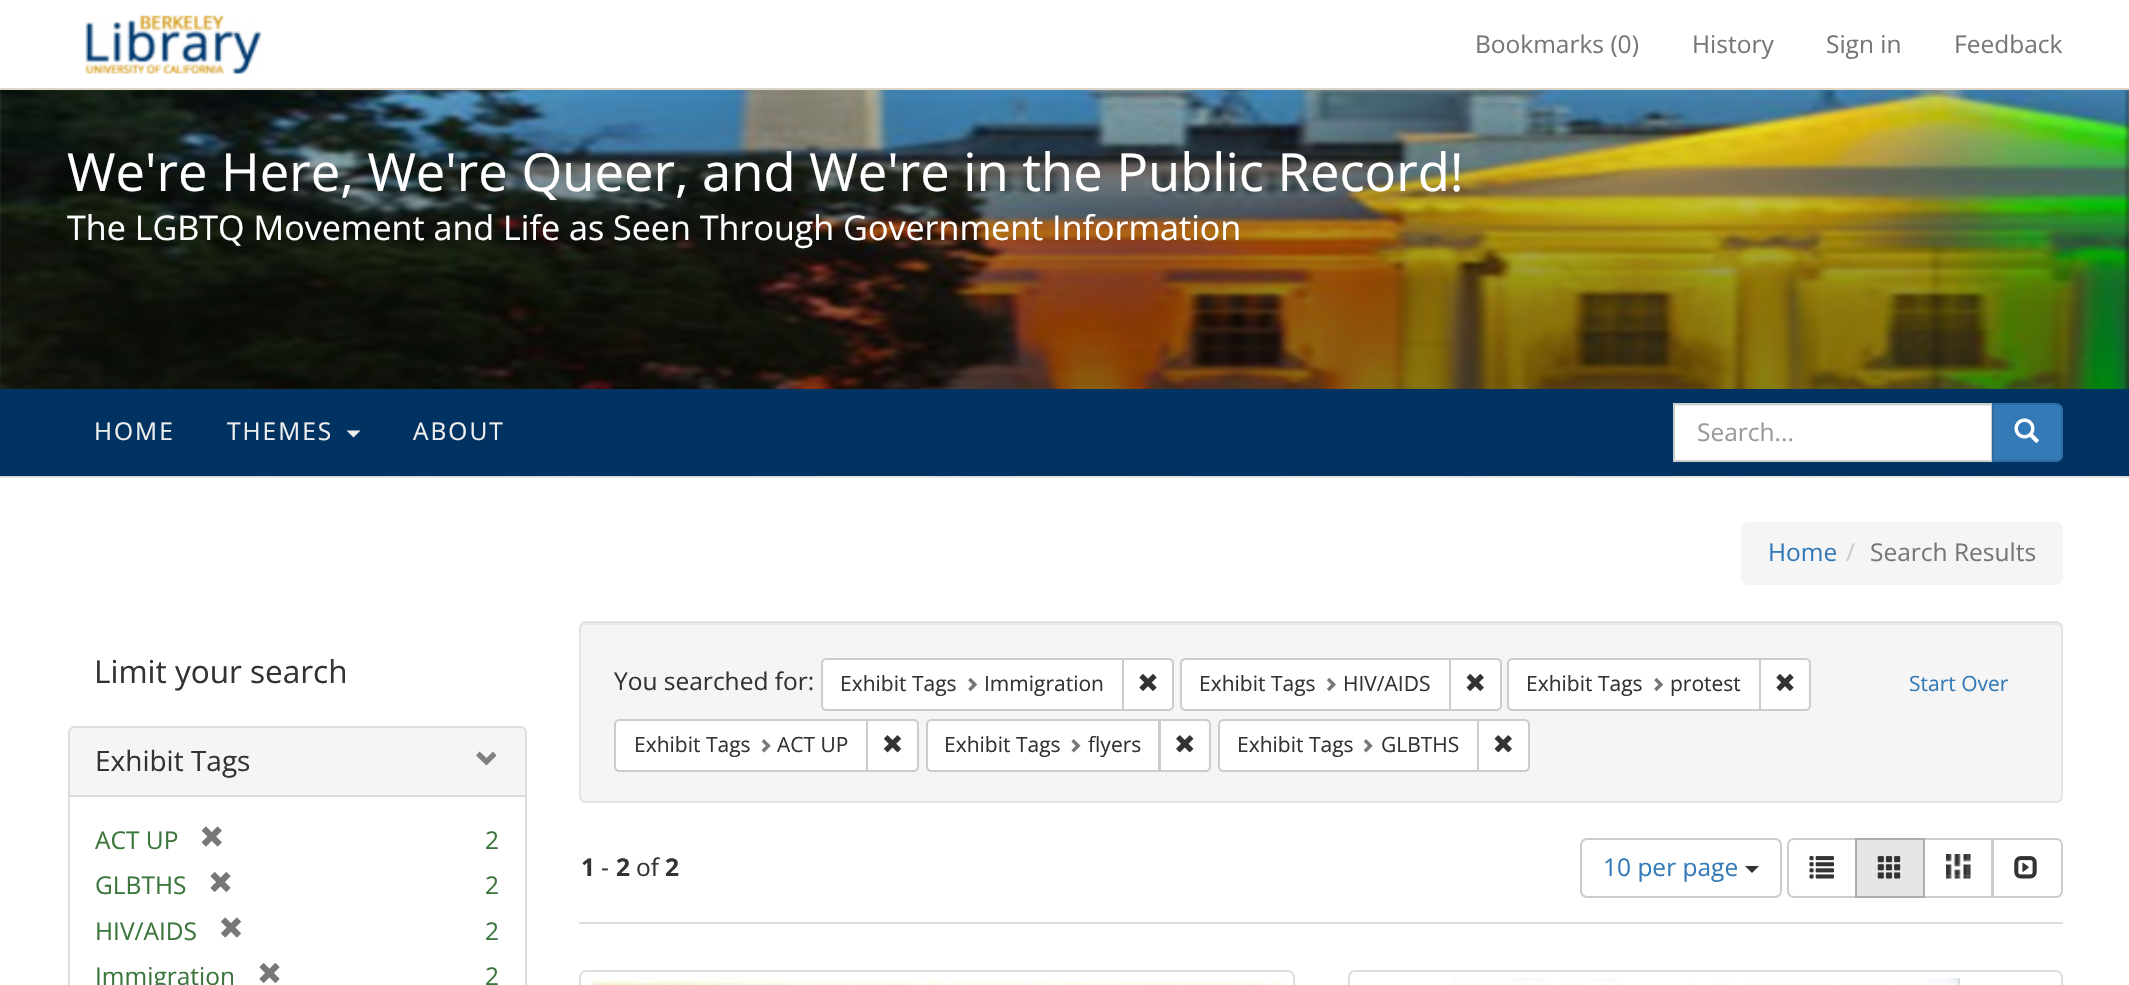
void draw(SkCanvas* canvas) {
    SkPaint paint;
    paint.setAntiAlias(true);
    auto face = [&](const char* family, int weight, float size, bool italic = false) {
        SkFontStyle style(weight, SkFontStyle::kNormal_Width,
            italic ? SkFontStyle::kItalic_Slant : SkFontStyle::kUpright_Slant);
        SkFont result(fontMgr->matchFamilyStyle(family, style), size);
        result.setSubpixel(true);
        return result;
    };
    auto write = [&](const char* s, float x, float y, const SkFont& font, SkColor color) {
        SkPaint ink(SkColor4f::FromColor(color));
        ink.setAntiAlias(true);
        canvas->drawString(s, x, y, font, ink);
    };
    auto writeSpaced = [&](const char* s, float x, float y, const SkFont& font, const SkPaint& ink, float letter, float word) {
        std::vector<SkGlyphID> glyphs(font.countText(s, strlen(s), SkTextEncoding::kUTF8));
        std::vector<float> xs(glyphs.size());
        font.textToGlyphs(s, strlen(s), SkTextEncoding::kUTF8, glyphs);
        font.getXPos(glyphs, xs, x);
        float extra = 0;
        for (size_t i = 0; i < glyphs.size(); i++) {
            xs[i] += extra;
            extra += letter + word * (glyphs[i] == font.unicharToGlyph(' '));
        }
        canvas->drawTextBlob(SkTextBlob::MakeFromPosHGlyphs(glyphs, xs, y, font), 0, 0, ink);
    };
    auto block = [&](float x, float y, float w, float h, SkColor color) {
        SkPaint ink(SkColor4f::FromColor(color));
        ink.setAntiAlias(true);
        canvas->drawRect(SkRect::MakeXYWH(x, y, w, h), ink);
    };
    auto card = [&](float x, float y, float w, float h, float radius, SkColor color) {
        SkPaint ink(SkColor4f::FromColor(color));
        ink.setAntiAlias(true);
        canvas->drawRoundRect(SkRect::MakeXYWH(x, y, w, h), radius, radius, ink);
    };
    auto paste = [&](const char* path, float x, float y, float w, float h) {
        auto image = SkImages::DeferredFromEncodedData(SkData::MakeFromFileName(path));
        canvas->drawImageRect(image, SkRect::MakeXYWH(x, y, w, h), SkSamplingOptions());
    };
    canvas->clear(SK_ColorWHITE);
    block(0, 476, 2129, 2, SkColorSetRGB(231, 231, 231));
    paste("pic2.png", 0, 90, 2129, 387);
    paint.setColor(SK_ColorBLACK);
    paint.setMaskFilter(SkMaskFilter::MakeBlur(kNormal_SkBlurStyle, 2));
    canvas->drawRect(SkRect::MakeXYWH(2128, 88, 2, 386), paint);
    paint.setMaskFilter(nullptr);
    block(2124, 84, 5, 4, SK_ColorWHITE);
    block(0, 88, 2129, 2, SkColorSetRGB(221, 213, 199));
    paste("pic1.png", 85, 15, 176, 59);
    auto kFont1 = face("Open Sans", 400, 24.5f);
    write("Bookmarks (0)", 1475, 53, kFont1, SkColorSetRGB(119, 119, 119));
    write("History", 1692, 53, kFont1, SkColorSetRGB(119, 119, 119));
    write("Sign in", 1826, 53, kFont1, SkColorSetRGB(119, 119, 119));
    write("Feedback", 1954, 53, kFont1, SkColorSetRGB(119, 119, 119));
    {
        const SkColor colors[] = {SkColorSetARGB(0, 0, 0, 0), SkColorSetARGB(102, 0, 0, 0), SkColorSetARGB(128, 0, 0, 0)};
        const float stops[] = {0, 0.5f, 1};
        const SkPoint ends[] = {{1065, 89}, {1065, 476}};
        paint.setShader(SkGradientShader::MakeLinear(ends, colors, stops, 3, SkTileMode::kClamp));
        paint.setAlpha(255);
    }
    canvas->drawRect(SkRect::MakeXYWH(0, 99, 2129, 290), paint);
    auto kFont2 = face("Open Sans", 400, 52.5f);
    write("We're Here, We're Queer, and We're in the Public Record!", 67, 191, kFont2, SK_ColorWHITE);
    auto kFont3 = face("Open Sans", 400, 34.1f);
    write("The LGBTQ Movement and Life as Seen Through Government Information", 67, 240, kFont3, SK_ColorWHITE);
    block(0, 389, 2129, 87, SkColorSetRGB(0, 50, 98));
    paint.setShader(nullptr);
    paint.setColor(SkColorSetRGB(238, 238, 238));
    writeSpaced("HOME", 94, 440, kFont1, paint, 2, 0);
    writeSpaced("THEMES", 227, 440, kFont1, paint, 2, 0);
    canvas->drawPath(SkPathBuilder().moveTo(346.5f, 430.5f).lineTo(360.5f, 430.5f).lineTo(353.5f, 437.5f).close().detach(), paint);
    writeSpaced("ABOUT", 413, 440, kFont1, paint, 2, 0);
    block(1675, 406, 316, 54, SK_ColorWHITE);
    block(1675, 405, 317, 1, SkColorSetRGB(236, 236, 236));
    paint.setStyle(SkPaint::kStroke_Style);
    paint.setStrokeWidth(2);
    paint.setColor(SkColorSetRGB(204, 204, 204));
    canvas->drawRect(SkRect::MakeXYWH(1674, 404, 318, 57), paint);
    write("Search...", 1697, 441, kFont1, SkColorSetRGB(153, 153, 153));
    paint.setStyle(SkPaint::kFill_Style);
    paint.setColor(SkColorSetRGB(51, 122, 183));
    canvas->drawPath(SkPathBuilder().moveTo(1993, 404).lineTo(2056, 404).cubicTo(2059.5f, 404, 2062, 406.5f, 2062, 410).lineTo(2062, 455).cubicTo(2062, 458.5f, 2059.5f, 461, 2056, 461).lineTo(1993, 461).close().detach(), paint);
    paint.setStyle(SkPaint::kStroke_Style);
    paint.setColor(SkColorSetRGB(46, 109, 164));
    canvas->drawPath(SkPathBuilder().moveTo(1993, 404).lineTo(2056, 404).cubicTo(2059.5f, 404, 2062, 406.5f, 2062, 410).lineTo(2062, 455).cubicTo(2062, 458.5f, 2059.5f, 461, 2056, 461).lineTo(1993, 461).close().detach(), paint);
    paste("pic3.png", 2014, 418, 25, 25);
    card(1741, 522, 322, 63, 7, SkColorSetRGB(245, 245, 245));
    write("Home", 1768, 561, kFont1, SkColorSetRGB(51, 122, 183));
    write("/", 1846, 561, kFont1, SkColorSetRGB(204, 204, 204));
    write("Search Results", 1870, 561, kFont1, SkColorSetRGB(119, 119, 119));
    auto kFont4 = face("Open Sans", 400, 31.5f);
    write("Limit your search", 94, 683, kFont4, SkColorSetRGB(51, 51, 51));
    paint.setColor(SkColorSetRGB(221, 221, 221));
    canvas->drawRoundRect(SkRect::MakeXYWH(69, 727, 457, 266), 6, 6, paint);
    paint.setStyle(SkPaint::kFill_Style);
    paint.setColor(SkColorSetRGB(245, 245, 245));
    canvas->drawPath(SkPathBuilder().moveTo(75, 728).lineTo(520, 728).cubicTo(523, 728, 525, 730, 525, 733).lineTo(525, 795).lineTo(70, 795).lineTo(70, 733).cubicTo(70, 730, 72, 728, 75, 728).close().detach(), paint);
    auto kFont5 = face("Open Sans", 400, 28);
    write("Exhibit Tags", 95, 771, kFont5, SkColorSetRGB(51, 51, 51));
    paint.setColor(SkColorSetRGB(128, 128, 128));
    canvas->drawPath(SkPathBuilder().moveTo(496.5f, 755.5f).lineTo(486.5f, 765.5f).lineTo(476, 755.5f).lineTo(479.5f, 751.5f).lineTo(486.5f, 758).lineTo(493, 751.5f).close().detach(), paint);
    block(70, 795, 455, 2, SkColorSetRGB(221, 221, 221));
    write("ACT UP", 95, 849, kFont1, SkColorSetRGB(60, 118, 61));
    paste("pic4.png", 201, 826, 21, 21);
    write("2", 485, 849, kFont1, SkColorSetRGB(60, 118, 61));
    write("GLBTHS", 95, 894, kFont1, SkColorSetRGB(60, 118, 61));
    paste("pic5.png", 210, 872, 21, 20);
    write("2", 485, 894, kFont1, SkColorSetRGB(60, 118, 61));
    write("HIV/AIDS", 95, 940, kFont1, SkColorSetRGB(60, 118, 61));
    paste("pic6.png", 221, 917, 20, 21);
    write("2", 485, 940, kFont1, SkColorSetRGB(60, 118, 61));
    write("Immigration", 95, 985, kFont1, SkColorSetRGB(60, 118, 61));
    paste("pic5.png", 259, 963, 21, 20);
    write("2", 485, 985, kFont1, SkColorSetRGB(60, 118, 61));
    card(579, 621, 1484, 182, 7, SkColorSetRGB(245, 245, 245));
    paint.setColor(SkColorSetRGB(233, 233, 233));
    canvas->drawPath(SkPathBuilder().moveTo(586, 625).lineTo(2056, 625).cubicTo(2059, 625, 2062, 627, 2062, 630).cubicTo(2062, 627, 2061, 623, 2057, 623).lineTo(586, 623).cubicTo(582, 623, 581, 627, 581, 630).cubicTo(581, 627, 583, 625, 586, 625).close().detach(), paint);
    paint.setStyle(SkPaint::kStroke_Style);
    paint.setColor(SkColorSetRGB(227, 227, 227));
    canvas->drawRoundRect(SkRect::MakeXYWH(580, 622, 1482, 180), 6, 6, paint);
    write("You searched for:", 614, 690, kFont1, SkColorSetRGB(51, 51, 51));
    paint.setStyle(SkPaint::kFill_Style);
    paint.setColor(SK_ColorWHITE);
    canvas->drawPath(SkPathBuilder().moveTo(826, 659).lineTo(1123, 659).lineTo(1123, 710).lineTo(826, 710).cubicTo(824, 710, 822, 708, 822, 706).lineTo(822, 663).cubicTo(822, 661, 824, 659, 826, 659).close().detach(), paint);
    paint.setStyle(SkPaint::kStroke_Style);
    paint.setColor(SkColorSetRGB(204, 204, 204));
    canvas->drawPath(SkPathBuilder().moveTo(826, 659).lineTo(1123, 659).lineTo(1123, 710).lineTo(826, 710).cubicTo(824, 710, 822, 708, 822, 706).lineTo(822, 663).cubicTo(822, 661, 824, 659, 826, 659).close().detach(), paint);
    auto kFont6 = face("Open Sans", 400, 21);
    write("Exhibit Tags", 840, 691, kFont6, SkColorSetRGB(51, 51, 51));
    paste("pic7.png", 968, 677, 10, 15);
    write("Immigration", 984, 691, kFont6, SkColorSetRGB(51, 51, 51));
    paint.setStyle(SkPaint::kFill_Style);
    paint.setColor(SK_ColorWHITE);
    canvas->drawPath(SkPathBuilder().moveTo(1123, 659).lineTo(1169, 659).cubicTo(1171, 659, 1173, 661, 1173, 663).lineTo(1173, 706).cubicTo(1173, 708, 1171, 710, 1169, 710).lineTo(1123, 710).close().detach(), paint);
    paint.setStyle(SkPaint::kStroke_Style);
    paint.setColor(SkColorSetRGB(204, 204, 204));
    canvas->drawPath(SkPathBuilder().moveTo(1123, 659).lineTo(1169, 659).cubicTo(1171, 659, 1173, 661, 1173, 663).lineTo(1173, 706).cubicTo(1173, 708, 1171, 710, 1169, 710).lineTo(1123, 710).close().detach(), paint);
    paste("pic8.png", 1139, 674, 18, 17);
    paint.setStyle(SkPaint::kFill_Style);
    paint.setColor(SK_ColorWHITE);
    canvas->drawPath(SkPathBuilder().moveTo(1185, 659).lineTo(1450, 659).lineTo(1450, 710).lineTo(1185, 710).cubicTo(1183, 710, 1181, 708, 1181, 706).lineTo(1181, 663).cubicTo(1181, 661, 1183, 659, 1185, 659).close().detach(), paint);
    paint.setStyle(SkPaint::kStroke_Style);
    paint.setColor(SkColorSetRGB(204, 204, 204));
    canvas->drawPath(SkPathBuilder().moveTo(1185, 659).lineTo(1450, 659).lineTo(1450, 710).lineTo(1185, 710).cubicTo(1183, 710, 1181, 708, 1181, 706).lineTo(1181, 663).cubicTo(1181, 661, 1183, 659, 1185, 659).close().detach(), paint);
    write("Exhibit Tags", 1199, 691, kFont6, SkColorSetRGB(51, 51, 51));
    paste("pic9.png", 1327, 677, 9, 15);
    write("HIV/AIDS", 1343, 691, kFont6, SkColorSetRGB(51, 51, 51));
    paint.setStyle(SkPaint::kFill_Style);
    paint.setColor(SK_ColorWHITE);
    canvas->drawPath(SkPathBuilder().moveTo(1450, 659).lineTo(1497, 659).cubicTo(1499, 659, 1501, 661, 1501, 663).lineTo(1501, 706).cubicTo(1501, 708, 1499, 710, 1497, 710).lineTo(1450, 710).close().detach(), paint);
    paint.setStyle(SkPaint::kStroke_Style);
    paint.setColor(SkColorSetRGB(204, 204, 204));
    canvas->drawPath(SkPathBuilder().moveTo(1450, 659).lineTo(1497, 659).cubicTo(1499, 659, 1501, 661, 1501, 663).lineTo(1501, 706).cubicTo(1501, 708, 1499, 710, 1497, 710).lineTo(1450, 710).close().detach(), paint);
    paste("pic10.png", 1466, 674, 18, 17);
    paint.setStyle(SkPaint::kFill_Style);
    paint.setColor(SK_ColorWHITE);
    canvas->drawPath(SkPathBuilder().moveTo(1512, 659).lineTo(1760, 659).lineTo(1760, 710).lineTo(1512, 710).cubicTo(1510, 710, 1508, 708, 1508, 706).lineTo(1508, 663).cubicTo(1508, 661, 1510, 659, 1512, 659).close().detach(), paint);
    paint.setStyle(SkPaint::kStroke_Style);
    paint.setColor(SkColorSetRGB(204, 204, 204));
    canvas->drawPath(SkPathBuilder().moveTo(1512, 659).lineTo(1760, 659).lineTo(1760, 710).lineTo(1512, 710).cubicTo(1510, 710, 1508, 708, 1508, 706).lineTo(1508, 663).cubicTo(1508, 661, 1510, 659, 1512, 659).close().detach(), paint);
    write("Exhibit Tags", 1526, 691, kFont6, SkColorSetRGB(51, 51, 51));
    paste("pic7.png", 1654, 677, 10, 15);
    write("protest", 1670, 691, kFont6, SkColorSetRGB(51, 51, 51));
    paint.setStyle(SkPaint::kFill_Style);
    paint.setColor(SK_ColorWHITE);
    canvas->drawPath(SkPathBuilder().moveTo(1760, 659).lineTo(1806, 659).cubicTo(1808, 659, 1810, 661, 1810, 663).lineTo(1810, 706).cubicTo(1810, 708, 1808, 710, 1806, 710).lineTo(1760, 710).close().detach(), paint);
    paint.setStyle(SkPaint::kStroke_Style);
    paint.setColor(SkColorSetRGB(204, 204, 204));
    canvas->drawPath(SkPathBuilder().moveTo(1760, 659).lineTo(1806, 659).cubicTo(1808, 659, 1810, 661, 1810, 663).lineTo(1810, 706).cubicTo(1810, 708, 1808, 710, 1806, 710).lineTo(1760, 710).close().detach(), paint);
    paste("pic8.png", 1776, 674, 18, 17);
    write("Start Over", 1909, 691, kFont6, SkColorSetRGB(51, 122, 183));
    paint.setStyle(SkPaint::kFill_Style);
    paint.setColor(SK_ColorWHITE);
    canvas->drawPath(SkPathBuilder().moveTo(619, 720).lineTo(867, 720).lineTo(867, 771).lineTo(619, 771).cubicTo(617, 771, 615, 769, 615, 767).lineTo(615, 724).cubicTo(615, 722, 617, 720, 619, 720).close().detach(), paint);
    paint.setStyle(SkPaint::kStroke_Style);
    paint.setColor(SkColorSetRGB(204, 204, 204));
    canvas->drawPath(SkPathBuilder().moveTo(619, 720).lineTo(867, 720).lineTo(867, 771).lineTo(619, 771).cubicTo(617, 771, 615, 769, 615, 767).lineTo(615, 724).cubicTo(615, 722, 617, 720, 619, 720).close().detach(), paint);
    write("Exhibit Tags", 634, 752, kFont6, SkColorSetRGB(51, 51, 51));
    paste("pic11.png", 761, 739, 10, 14);
    write("ACT UP", 777, 752, kFont6, SkColorSetRGB(51, 51, 51));
    paint.setStyle(SkPaint::kFill_Style);
    paint.setColor(SK_ColorWHITE);
    canvas->drawPath(SkPathBuilder().moveTo(867, 720).lineTo(914, 720).cubicTo(916, 720, 918, 722, 918, 724).lineTo(918, 767).cubicTo(918, 769, 916, 771, 914, 771).lineTo(867, 771).close().detach(), paint);
    paint.setStyle(SkPaint::kStroke_Style);
    paint.setColor(SkColorSetRGB(204, 204, 204));
    canvas->drawPath(SkPathBuilder().moveTo(867, 720).lineTo(914, 720).cubicTo(916, 720, 918, 722, 918, 724).lineTo(918, 767).cubicTo(918, 769, 916, 771, 914, 771).lineTo(867, 771).close().detach(), paint);
    paste("pic12.png", 884, 735, 17, 18);
    paint.setStyle(SkPaint::kFill_Style);
    paint.setColor(SK_ColorWHITE);
    canvas->drawPath(SkPathBuilder().moveTo(931, 720).lineTo(1159, 720).lineTo(1159, 771).lineTo(931, 771).cubicTo(929, 771, 927, 769, 927, 767).lineTo(927, 724).cubicTo(927, 722, 929, 720, 931, 720).close().detach(), paint);
    paint.setStyle(SkPaint::kStroke_Style);
    paint.setColor(SkColorSetRGB(204, 204, 204));
    canvas->drawPath(SkPathBuilder().moveTo(931, 720).lineTo(1159, 720).lineTo(1159, 771).lineTo(931, 771).cubicTo(929, 771, 927, 769, 927, 767).lineTo(927, 724).cubicTo(927, 722, 929, 720, 931, 720).close().detach(), paint);
    write("Exhibit Tags", 944, 752, kFont6, SkColorSetRGB(51, 51, 51));
    paste("pic13.png", 1071, 739, 10, 14);
    write("flyers", 1088, 752, kFont6, SkColorSetRGB(51, 51, 51));
    paint.setStyle(SkPaint::kFill_Style);
    paint.setColor(SK_ColorWHITE);
    canvas->drawPath(SkPathBuilder().moveTo(1160, 720).lineTo(1206, 720).cubicTo(1208, 720, 1210, 722, 1210, 724).lineTo(1210, 767).cubicTo(1210, 769, 1208, 771, 1206, 771).lineTo(1160, 771).close().detach(), paint);
    paint.setStyle(SkPaint::kStroke_Style);
    paint.setColor(SkColorSetRGB(204, 204, 204));
    canvas->drawPath(SkPathBuilder().moveTo(1160, 720).lineTo(1206, 720).cubicTo(1208, 720, 1210, 722, 1210, 724).lineTo(1210, 767).cubicTo(1210, 769, 1208, 771, 1206, 771).lineTo(1160, 771).close().detach(), paint);
    paste("pic14.png", 1176, 735, 18, 18);
    paint.setStyle(SkPaint::kFill_Style);
    paint.setColor(SK_ColorWHITE);
    canvas->drawPath(SkPathBuilder().moveTo(1223, 720).lineTo(1478, 720).lineTo(1478, 771).lineTo(1223, 771).cubicTo(1221, 771, 1219, 769, 1219, 767).lineTo(1219, 724).cubicTo(1219, 722, 1221, 720, 1223, 720).close().detach(), paint);
    paint.setStyle(SkPaint::kStroke_Style);
    paint.setColor(SkColorSetRGB(204, 204, 204));
    canvas->drawPath(SkPathBuilder().moveTo(1223, 720).lineTo(1478, 720).lineTo(1478, 771).lineTo(1223, 771).cubicTo(1221, 771, 1219, 769, 1219, 767).lineTo(1219, 724).cubicTo(1219, 722, 1221, 720, 1223, 720).close().detach(), paint);
    write("Exhibit Tags", 1237, 752, kFont6, SkColorSetRGB(51, 51, 51));
    paste("pic11.png", 1363, 739, 10, 14);
    write("GLBTHS", 1381, 752, kFont6, SkColorSetRGB(51, 51, 51));
    paint.setStyle(SkPaint::kFill_Style);
    paint.setColor(SK_ColorWHITE);
    canvas->drawPath(SkPathBuilder().moveTo(1478, 720).lineTo(1525, 720).cubicTo(1527, 720, 1529, 722, 1529, 724).lineTo(1529, 767).cubicTo(1529, 769, 1527, 771, 1525, 771).lineTo(1478, 771).close().detach(), paint);
    paint.setStyle(SkPaint::kStroke_Style);
    paint.setColor(SkColorSetRGB(204, 204, 204));
    canvas->drawPath(SkPathBuilder().moveTo(1478, 720).lineTo(1525, 720).cubicTo(1527, 720, 1529, 722, 1529, 724).lineTo(1529, 767).cubicTo(1529, 769, 1527, 771, 1525, 771).lineTo(1478, 771).close().detach(), paint);
    paste("pic15.png", 1494, 735, 18, 18);
    block(579, 922, 1484, 2, SkColorSetRGB(221, 221, 221));
    auto kFont7 = face("Open Sans", 700, 24.5f);
    write("1", 581, 876, kFont7, SkColorSetRGB(51, 51, 51));
    write("-", 601, 876, kFont1, SkColorSetRGB(51, 51, 51));
    write("2", 616, 876, kFont7, SkColorSetRGB(51, 51, 51));
    write("of", 636, 876, kFont1, SkColorSetRGB(51, 51, 51));
    write("2", 665, 876, kFont7, SkColorSetRGB(51, 51, 51));
    canvas->drawRoundRect(SkRect::MakeXYWH(1581, 839, 200, 58), 6, 6, paint);
    write("10 per page", 1603, 876, kFont1, SkColorSetRGB(51, 122, 183));
    paint.setStyle(SkPaint::kFill_Style);
    paint.setColor(SkColorSetRGB(51, 51, 51));
    canvas->drawPath(SkPathBuilder().moveTo(1745, 866).lineTo(1759, 866).lineTo(1752, 873).close().detach(), paint);
    paint.setStyle(SkPaint::kStroke_Style);
    paint.setColor(SkColorSetRGB(204, 204, 204));
    canvas->drawPath(SkPathBuilder().moveTo(1794, 839).lineTo(1856, 839).lineTo(1856, 897).lineTo(1794, 897).cubicTo(1790.5f, 897, 1788, 894.5f, 1788, 891).lineTo(1788, 845).cubicTo(1788, 841.5f, 1790.5f, 839, 1794, 839).close().detach(), paint);
    paste("pic16.png", 1809, 856, 25, 23);
    canvas->drawRect(SkRect::MakeXYWH(1924, 839, 68, 58), paint);
    paint.setStyle(SkPaint::kFill_Style);
    paint.setColor(SkColorSetRGB(230, 230, 230));
    canvas->drawRect(SkRect::MakeXYWH(1856, 839, 68, 58), paint);
    paint.setStyle(SkPaint::kStroke_Style);
    paint.setColor(SkColorSetRGB(173, 173, 173));
    canvas->drawRect(SkRect::MakeXYWH(1856, 839, 68, 58), paint);
    paste("pic17.png", 1877, 856, 24, 23);
    paste("pic18.png", 1946, 854, 25, 25);
    paint.setStyle(SkPaint::kFill_Style);
    paint.setColor(SK_ColorWHITE);
    canvas->drawPath(SkPathBuilder().moveTo(1993, 839).lineTo(2056, 839).cubicTo(2059.5f, 839, 2062, 841.5f, 2062, 845).lineTo(2062, 891).cubicTo(2062, 894.5f, 2059.5f, 897, 2056, 897).lineTo(1993, 897).close().detach(), paint);
    paint.setStyle(SkPaint::kStroke_Style);
    paint.setColor(SkColorSetRGB(204, 204, 204));
    canvas->drawPath(SkPathBuilder().moveTo(1993, 839).lineTo(2056, 839).cubicTo(2059.5f, 839, 2062, 841.5f, 2062, 845).lineTo(2062, 891).cubicTo(2062, 894.5f, 2059.5f, 897, 2056, 897).lineTo(1993, 897).close().detach(), paint);
    paste("pic19.png", 2014, 856, 23, 23);
    paint.setColor(SkColorSetRGB(221, 221, 221));
    canvas->drawRoundRect(SkRect::MakeXYWH(580, 971, 714, 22), 6, 6, paint);
    paste("pic20.png", 589, 978, 697, 7);
    canvas->drawRoundRect(SkRect::MakeXYWH(1349, 971, 713, 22), 6, 6, paint);
    paste("pic21.png", 1451, 978, 509, 7);
}
